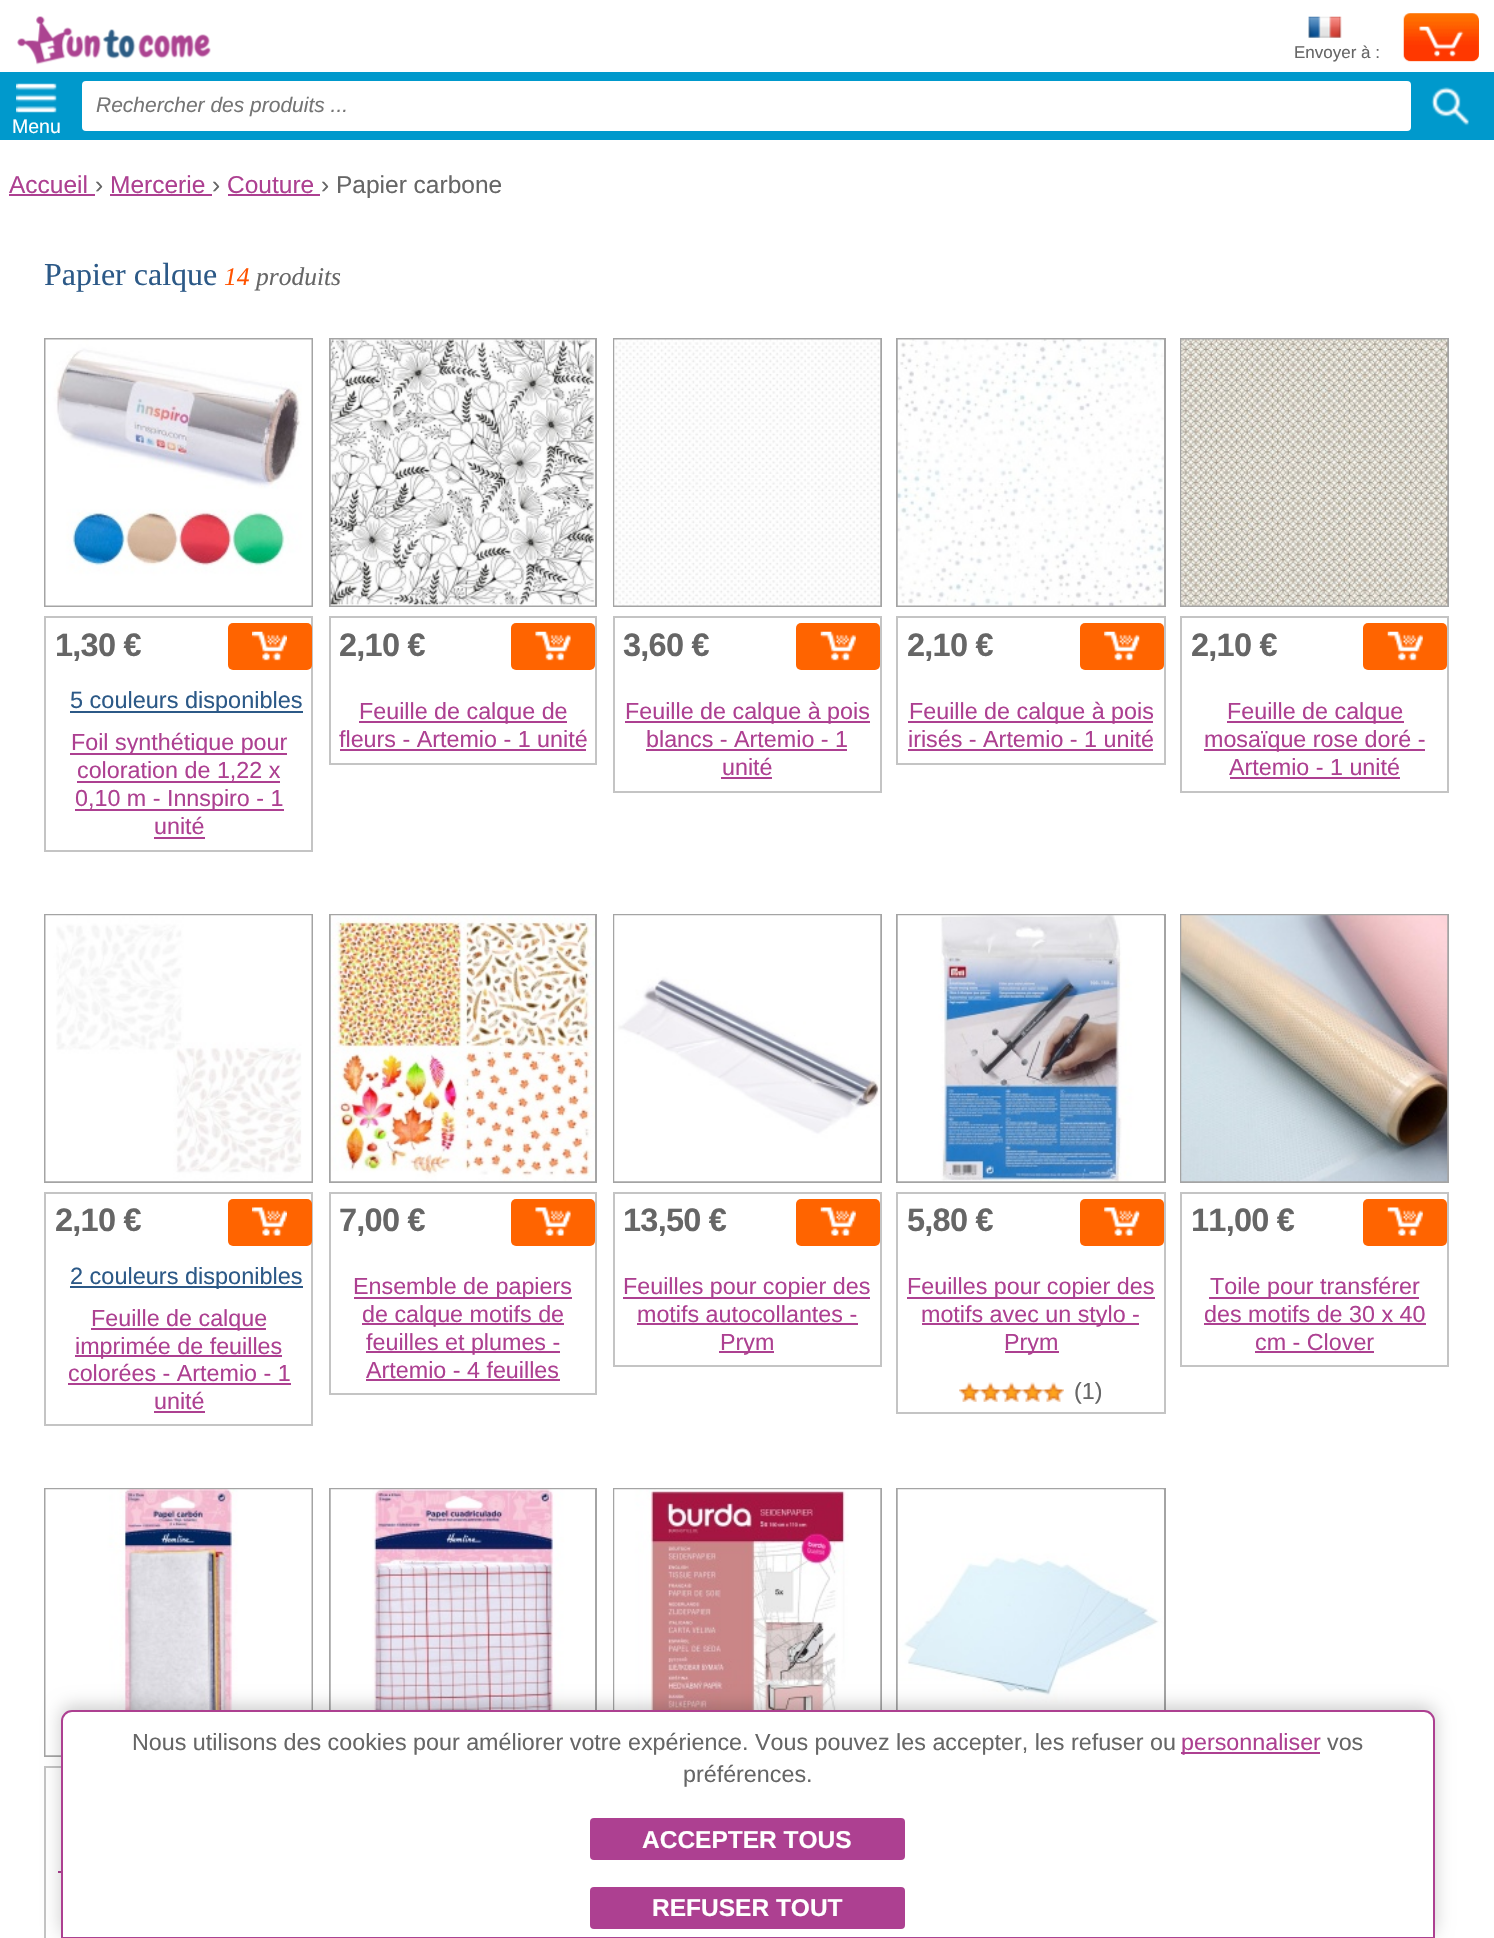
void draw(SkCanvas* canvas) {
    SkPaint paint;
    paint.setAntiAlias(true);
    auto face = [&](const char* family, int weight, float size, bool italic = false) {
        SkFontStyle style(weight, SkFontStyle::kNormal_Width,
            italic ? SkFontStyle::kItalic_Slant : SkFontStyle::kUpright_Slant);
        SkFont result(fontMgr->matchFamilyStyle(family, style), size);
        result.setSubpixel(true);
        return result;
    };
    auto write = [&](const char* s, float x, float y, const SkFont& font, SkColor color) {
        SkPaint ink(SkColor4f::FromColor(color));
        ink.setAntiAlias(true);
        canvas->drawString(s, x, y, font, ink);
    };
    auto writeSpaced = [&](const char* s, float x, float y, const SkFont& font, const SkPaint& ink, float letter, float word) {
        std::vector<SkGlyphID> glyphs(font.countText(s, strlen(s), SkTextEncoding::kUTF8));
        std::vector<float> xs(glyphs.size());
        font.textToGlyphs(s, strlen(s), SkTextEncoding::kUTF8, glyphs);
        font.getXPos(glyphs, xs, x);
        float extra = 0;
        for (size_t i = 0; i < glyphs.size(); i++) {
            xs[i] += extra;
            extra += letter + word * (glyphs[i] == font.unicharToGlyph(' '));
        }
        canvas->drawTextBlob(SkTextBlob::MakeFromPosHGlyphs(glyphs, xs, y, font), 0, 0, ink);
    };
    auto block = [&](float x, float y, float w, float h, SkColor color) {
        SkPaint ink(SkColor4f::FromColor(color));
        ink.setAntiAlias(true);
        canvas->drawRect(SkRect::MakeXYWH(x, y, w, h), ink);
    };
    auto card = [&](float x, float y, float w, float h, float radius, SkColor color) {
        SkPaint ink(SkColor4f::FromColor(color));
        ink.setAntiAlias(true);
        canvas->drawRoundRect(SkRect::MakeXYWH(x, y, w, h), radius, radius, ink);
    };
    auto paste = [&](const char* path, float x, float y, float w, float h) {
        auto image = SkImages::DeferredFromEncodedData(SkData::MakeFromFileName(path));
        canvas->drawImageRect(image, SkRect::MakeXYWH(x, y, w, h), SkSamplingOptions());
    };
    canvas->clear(SK_ColorWHITE);
    paste("pic1.png", 17, 16, 194, 49);
    paste("pic2.png", 1308, 16, 34, 22);
    auto kFont1 = face("Liberation Sans", 400, 17);
    write("Envoyer à :", 1294, 58, kFont1, SkColorSetRGB(102, 102, 102));
    card(1404, 14, 75, 47, 7, SkColorSetRGB(255, 93, 0));
    paste("pic3.png", 1403, 13, 76, 49);
    paste("pic4.png", 1419, 26, 45, 31);
    block(0, 72, 1494, 68, SkColorSetRGB(0, 153, 204));
    card(82, 81, 1329, 50, 4, SK_ColorWHITE);
    auto kFont2 = face("Liberation Sans", 400, 21, true);
    write("Rechercher des produits ...", 96, 112, kFont2, SkColorSetRGB(117, 117, 117));
    paste("pic5.png", 1431, 87, 38, 39);
    paste("pic6.png", 16, 83, 41, 30);
    auto kFont3 = face("Liberation Sans", 400, 19.5f);
    write("Menu", 12, 133, kFont3, SK_ColorWHITE);
    auto kFont4 = face("Liberation Sans", 400, 24.5f);
    write("Accueil", 9, 193, kFont4, SkColorSetRGB(173, 64, 145));
    block(9, 194, 86, 2, SkColorSetRGB(173, 64, 145));
    write("›", 95, 193, kFont4, SkColorSetRGB(102, 102, 102));
    write("Mercerie", 110, 193, kFont4, SkColorSetRGB(173, 64, 145));
    write("›", 212, 193, kFont4, SkColorSetRGB(102, 102, 102));
    block(110, 194, 102, 2, SkColorSetRGB(173, 64, 145));
    write("Couture", 227, 193, kFont4, SkColorSetRGB(173, 64, 145));
    write("› Papier carbone", 321, 193, kFont4, SkColorSetRGB(102, 102, 102));
    block(228, 194, 92, 2, SkColorSetRGB(173, 64, 145));
    auto kFont5 = face("Liberation Serif", 400, 32);
    write("Papier calque", 44, 285, kFont5, SkColorSetRGB(44, 89, 135));
    auto kFont6 = face("Liberation Serif", 400, 25.5f, true);
    write("14", 224, 285, kFont6, SkColorSetRGB(255, 83, 0));
    write("produits", 256, 285, kFont6, SkColorSetRGB(102, 102, 102));
    paint.setStyle(SkPaint::kStroke_Style);
    paint.setStrokeWidth(2);
    paint.setColor(SkColorSetRGB(164, 164, 164));
    canvas->drawRect(SkRect::MakeXYWH(45, 339, 267, 267), paint);
    paste("pic7.png", 45, 339, 267, 267);
    paint.setColor(SkColorSetRGB(196, 196, 196));
    canvas->drawRect(SkRect::MakeXYWH(45, 617, 267, 234), paint);
    auto kFont7 = face("Liberation Sans", 700, 32.5f);
    paint.setStyle(SkPaint::kFill_Style);
    paint.setColor(SkColorSetRGB(102, 102, 102));
    writeSpaced("1,30 €", 55, 656, kFont7, paint, -0.75f, 0);
    card(228, 623, 84, 47, 5, SkColorSetRGB(255, 100, 0));
    paste("pic8.png", 252, 631, 35, 30);
    block(70, 711, 233, 2, SkColorSetRGB(44, 89, 135));
    auto kFont8 = face("Liberation Sans", 400, 23.5f);
    write("5 couleurs disponibles", 70, 708, kFont8, SkColorSetRGB(44, 89, 135));
    block(70, 753, 217, 2, SkColorSetRGB(173, 64, 145));
    auto kFont9 = face("Liberation Sans", 400, 23.3f);
    write("Foil synthétique pour", 71, 750, kFont9, SkColorSetRGB(173, 64, 145));
    write("coloration de 1,22 x", 77, 778, kFont9, SkColorSetRGB(173, 64, 145));
    block(77, 781, 203, 2, SkColorSetRGB(173, 64, 145));
    block(75, 809, 209, 2, SkColorSetRGB(173, 64, 145));
    write("0,10 m - Innspiro - 1", 75, 806, kFont9, SkColorSetRGB(173, 64, 145));
    write("unité", 154, 834, kFont9, SkColorSetRGB(173, 64, 145));
    block(154, 837, 51, 2, SkColorSetRGB(173, 64, 145));
    paint.setStyle(SkPaint::kStroke_Style);
    paint.setColor(SkColorSetRGB(164, 164, 164));
    canvas->drawRect(SkRect::MakeXYWH(330, 339, 266, 267), paint);
    paste("pic9.png", 330, 339, 265, 267);
    paint.setColor(SkColorSetRGB(196, 196, 196));
    canvas->drawRect(SkRect::MakeXYWH(330, 617, 266, 147), paint);
    paint.setStyle(SkPaint::kFill_Style);
    paint.setColor(SkColorSetRGB(102, 102, 102));
    writeSpaced("2,10 €", 339, 656, kFont7, paint, -0.75f, 0);
    card(511, 623, 84, 47, 5, SkColorSetRGB(255, 100, 0));
    paste("pic10.png", 535, 631, 36, 30);
    block(359, 721, 208, 2, SkColorSetRGB(173, 64, 145));
    write("Feuille de calque de", 359, 719, kFont9, SkColorSetRGB(173, 64, 145));
    write("fleurs - Artemio - 1 unité", 339, 747, kFont9, SkColorSetRGB(173, 64, 145));
    block(340, 749, 246, 2, SkColorSetRGB(173, 64, 145));
    paint.setStyle(SkPaint::kStroke_Style);
    paint.setColor(SkColorSetRGB(164, 164, 164));
    canvas->drawRect(SkRect::MakeXYWH(614, 339, 267, 267), paint);
    paste("pic11.png", 614, 339, 267, 267);
    paint.setColor(SkColorSetRGB(196, 196, 196));
    canvas->drawRect(SkRect::MakeXYWH(614, 617, 267, 175), paint);
    paint.setStyle(SkPaint::kFill_Style);
    paint.setColor(SkColorSetRGB(102, 102, 102));
    writeSpaced("3,60 €", 623, 656, kFont7, paint, -0.75f, 0);
    card(796, 623, 84, 47, 5, SkColorSetRGB(255, 100, 0));
    paste("pic12.png", 820, 631, 36, 30);
    block(625, 721, 245, 2, SkColorSetRGB(173, 64, 145));
    write("Feuille de calque à pois", 625, 719, kFont9, SkColorSetRGB(173, 64, 145));
    write("blancs - Artemio - 1", 646, 747, kFont9, SkColorSetRGB(173, 64, 145));
    block(646, 749, 201, 2, SkColorSetRGB(173, 64, 145));
    write("unité", 722, 775, kFont9, SkColorSetRGB(173, 64, 145));
    block(721, 777, 51, 2, SkColorSetRGB(173, 64, 145));
    paint.setStyle(SkPaint::kStroke_Style);
    paint.setColor(SkColorSetRGB(164, 164, 164));
    canvas->drawRect(SkRect::MakeXYWH(897, 339, 268, 267), paint);
    paste("pic13.png", 897, 339, 267, 267);
    paint.setColor(SkColorSetRGB(196, 196, 196));
    canvas->drawRect(SkRect::MakeXYWH(897, 617, 268, 147), paint);
    paint.setStyle(SkPaint::kFill_Style);
    paint.setColor(SkColorSetRGB(102, 102, 102));
    writeSpaced("2,10 €", 907, 656, kFont7, paint, -0.75f, 0);
    card(1080, 623, 84, 47, 5, SkColorSetRGB(255, 100, 0));
    paste("pic14.png", 1104, 631, 36, 30);
    block(908, 721, 245, 2, SkColorSetRGB(173, 64, 145));
    write("Feuille de calque à pois", 909, 719, kFont9, SkColorSetRGB(173, 64, 145));
    write("irisés - Artemio - 1 unité", 908, 747, kFont9, SkColorSetRGB(173, 64, 145));
    block(908, 749, 245, 2, SkColorSetRGB(173, 64, 145));
    paint.setStyle(SkPaint::kStroke_Style);
    paint.setColor(SkColorSetRGB(164, 164, 164));
    canvas->drawRect(SkRect::MakeXYWH(1181, 339, 267, 267), paint);
    paste("pic15.png", 1181, 339, 267, 267);
    paint.setColor(SkColorSetRGB(196, 196, 196));
    canvas->drawRect(SkRect::MakeXYWH(1181, 617, 267, 175), paint);
    paint.setStyle(SkPaint::kFill_Style);
    paint.setColor(SkColorSetRGB(102, 102, 102));
    writeSpaced("2,10 €", 1191, 656, kFont7, paint, -0.75f, 0);
    card(1363, 623, 84, 47, 5, SkColorSetRGB(255, 100, 0));
    paste("pic12.png", 1387, 631, 36, 30);
    block(1227, 721, 177, 2, SkColorSetRGB(173, 64, 145));
    write("Feuille de calque", 1227, 719, kFont9, SkColorSetRGB(173, 64, 145));
    block(1204, 749, 221, 2, SkColorSetRGB(173, 64, 145));
    write("mosaïque rose doré -", 1204, 747, kFont9, SkColorSetRGB(173, 64, 145));
    write("Artemio - 1 unité", 1229, 775, kFont9, SkColorSetRGB(173, 64, 145));
    block(1230, 777, 170, 2, SkColorSetRGB(173, 64, 145));
    paint.setStyle(SkPaint::kStroke_Style);
    paint.setColor(SkColorSetRGB(164, 164, 164));
    canvas->drawRect(SkRect::MakeXYWH(45, 915, 267, 267), paint);
    paste("pic16.png", 45, 915, 267, 267);
    paint.setColor(SkColorSetRGB(196, 196, 196));
    canvas->drawRect(SkRect::MakeXYWH(45, 1193, 267, 232), paint);
    paint.setStyle(SkPaint::kFill_Style);
    paint.setColor(SkColorSetRGB(102, 102, 102));
    writeSpaced("2,10 €", 55, 1231, kFont7, paint, -0.75f, 0);
    card(228, 1199, 84, 47, 5, SkColorSetRGB(255, 100, 0));
    paste("pic17.png", 252, 1207, 35, 29);
    block(70, 1286, 233, 2, SkColorSetRGB(44, 89, 135));
    write("2 couleurs disponibles", 70, 1284, kFont8, SkColorSetRGB(44, 89, 135));
    block(91, 1328, 175, 2, SkColorSetRGB(173, 64, 145));
    write("Feuille de calque", 91, 1326, kFont9, SkColorSetRGB(173, 64, 145));
    block(75, 1355, 207, 2, SkColorSetRGB(173, 64, 145));
    write("imprimée de feuilles", 75, 1354, kFont9, SkColorSetRGB(173, 64, 145));
    write("colorées - Artemio - 1", 68, 1381, kFont9, SkColorSetRGB(173, 64, 145));
    block(68, 1383, 223, 2, SkColorSetRGB(173, 64, 145));
    write("unité", 154, 1409, kFont9, SkColorSetRGB(173, 64, 145));
    block(154, 1411, 51, 2, SkColorSetRGB(173, 64, 145));
    paint.setStyle(SkPaint::kStroke_Style);
    paint.setColor(SkColorSetRGB(164, 164, 164));
    canvas->drawRect(SkRect::MakeXYWH(330, 915, 266, 267), paint);
    paste("pic18.png", 330, 915, 265, 267);
    paint.setColor(SkColorSetRGB(196, 196, 196));
    canvas->drawRect(SkRect::MakeXYWH(330, 1193, 266, 201), paint);
    paint.setStyle(SkPaint::kFill_Style);
    paint.setColor(SkColorSetRGB(102, 102, 102));
    writeSpaced("7,00 €", 339, 1231, kFont7, paint, -0.75f, 0);
    card(511, 1199, 84, 47, 5, SkColorSetRGB(255, 100, 0));
    paste("pic19.png", 535, 1207, 36, 29);
    block(354, 1297, 218, 2, SkColorSetRGB(173, 64, 145));
    write("Ensemble de papiers", 353, 1294, kFont9, SkColorSetRGB(173, 64, 145));
    block(362, 1323, 202, 2, SkColorSetRGB(173, 64, 145));
    write("de calque motifs de", 362, 1322, kFont9, SkColorSetRGB(173, 64, 145));
    block(366, 1351, 194, 2, SkColorSetRGB(173, 64, 145));
    write("feuilles et plumes -", 366, 1350, kFont9, SkColorSetRGB(173, 64, 145));
    write("Artemio - 4 feuilles", 366, 1378, kFont9, SkColorSetRGB(173, 64, 145));
    block(366, 1379, 194, 2, SkColorSetRGB(173, 64, 145));
    paint.setStyle(SkPaint::kStroke_Style);
    paint.setColor(SkColorSetRGB(164, 164, 164));
    canvas->drawRect(SkRect::MakeXYWH(614, 915, 267, 267), paint);
    paste("pic20.png", 614, 915, 267, 267);
    paint.setColor(SkColorSetRGB(196, 196, 196));
    canvas->drawRect(SkRect::MakeXYWH(614, 1193, 267, 173), paint);
    paint.setStyle(SkPaint::kFill_Style);
    paint.setColor(SkColorSetRGB(102, 102, 102));
    writeSpaced("13,50 €", 623, 1231, kFont7, paint, -0.75f, 0);
    card(796, 1199, 84, 47, 5, SkColorSetRGB(255, 100, 0));
    paste("pic21.png", 820, 1207, 36, 29);
    block(623, 1297, 247, 2, SkColorSetRGB(173, 64, 145));
    write("Feuilles pour copier des", 623, 1294, kFont9, SkColorSetRGB(173, 64, 145));
    write("motifs autocollantes -", 637, 1322, kFont9, SkColorSetRGB(173, 64, 145));
    block(637, 1323, 221, 2, SkColorSetRGB(173, 64, 145));
    block(719, 1351, 55, 2, SkColorSetRGB(173, 64, 145));
    write("Prym", 720, 1350, kFont9, SkColorSetRGB(173, 64, 145));
    paint.setStyle(SkPaint::kStroke_Style);
    paint.setColor(SkColorSetRGB(164, 164, 164));
    canvas->drawRect(SkRect::MakeXYWH(897, 915, 268, 267), paint);
    paste("pic22.png", 897, 915, 267, 267);
    paint.setColor(SkColorSetRGB(196, 196, 196));
    canvas->drawRect(SkRect::MakeXYWH(897, 1193, 268, 220), paint);
    paint.setStyle(SkPaint::kFill_Style);
    paint.setColor(SkColorSetRGB(102, 102, 102));
    writeSpaced("5,80 €", 907, 1231, kFont7, paint, -0.75f, 0);
    card(1080, 1199, 84, 47, 5, SkColorSetRGB(255, 100, 0));
    paste("pic23.png", 1104, 1207, 36, 29);
    block(907, 1297, 248, 2, SkColorSetRGB(173, 64, 145));
    write("Feuilles pour copier des", 907, 1294, kFont9, SkColorSetRGB(173, 64, 145));
    block(922, 1323, 217, 2, SkColorSetRGB(173, 64, 145));
    write("motifs avec un stylo -", 921, 1322, kFont9, SkColorSetRGB(173, 64, 145));
    block(1005, 1351, 54, 2, SkColorSetRGB(173, 64, 145));
    write("Prym", 1004, 1350, kFont9, SkColorSetRGB(173, 64, 145));
    paste("pic24.png", 959, 1382, 105, 20);
    write("(1)", 1074, 1399, kFont9, SkColorSetRGB(102, 102, 102));
    paint.setStyle(SkPaint::kStroke_Style);
    paint.setColor(SkColorSetRGB(164, 164, 164));
    canvas->drawRect(SkRect::MakeXYWH(1181, 915, 267, 267), paint);
    paste("pic25.png", 1181, 915, 267, 267);
    paint.setColor(SkColorSetRGB(196, 196, 196));
    canvas->drawRect(SkRect::MakeXYWH(1181, 1193, 267, 173), paint);
    paint.setStyle(SkPaint::kFill_Style);
    paint.setColor(SkColorSetRGB(102, 102, 102));
    writeSpaced("11,00 €", 1191, 1231, kFont7, paint, -0.75f, 0);
    card(1363, 1199, 84, 47, 5, SkColorSetRGB(255, 100, 0));
    paste("pic21.png", 1387, 1207, 36, 29);
    block(1209, 1297, 210, 2, SkColorSetRGB(173, 64, 145));
    write("Toile pour transférer", 1210, 1294, kFont9, SkColorSetRGB(173, 64, 145));
    write("des motifs de 30 x 40", 1204, 1322, kFont9, SkColorSetRGB(173, 64, 145));
    block(1204, 1323, 222, 2, SkColorSetRGB(173, 64, 145));
    write("cm - Clover", 1255, 1350, kFont9, SkColorSetRGB(173, 64, 145));
    block(1255, 1351, 119, 2, SkColorSetRGB(173, 64, 145));
    paint.setStyle(SkPaint::kStroke_Style);
    paint.setColor(SkColorSetRGB(164, 164, 164));
    canvas->drawRect(SkRect::MakeXYWH(45, 1489, 267, 267), paint);
    paste("pic26.png", 45, 1489, 267, 267);
    paint.setColor(SkColorSetRGB(196, 196, 196));
    canvas->drawRect(SkRect::MakeXYWH(45, 1767, 267, 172), paint);
    block(58, 1871, 3, 2, SkColorSetRGB(173, 64, 145));
    paint.setColor(SkColorSetRGB(164, 164, 164));
    canvas->drawRect(SkRect::MakeXYWH(330, 1489, 266, 267), paint);
    paste("pic27.png", 330, 1489, 265, 221);
    canvas->drawRect(SkRect::MakeXYWH(614, 1489, 267, 267), paint);
    paste("pic28.png", 614, 1489, 267, 221);
    canvas->drawRect(SkRect::MakeXYWH(897, 1489, 268, 267), paint);
    paste("pic29.png", 897, 1489, 267, 221);
    paint.setStyle(SkPaint::kFill_Style);
    paint.setColor(SkColorSetARGB(51, 0, 0, 0));
    paint.setMaskFilter(SkMaskFilter::MakeBlur(kNormal_SkBlurStyle, 9));
    canvas->drawRoundRect(SkRect::MakeXYWH(61, 1706, 1374, 230), 11, 11, paint);
    paint.setMaskFilter(nullptr);
    paint.setColor(SK_ColorWHITE);
    canvas->drawPath(SkPathBuilder().moveTo(72, 1711).lineTo(1424, 1711).cubicTo(1429.5f, 1711, 1434, 1715.5f, 1434, 1721).lineTo(1434, 1938).lineTo(62, 1938).lineTo(62, 1721).cubicTo(62, 1715.5f, 66.5f, 1711, 72, 1711).close().detach(), paint);
    paint.setStyle(SkPaint::kStroke_Style);
    paint.setColor(SkColorSetRGB(173, 64, 145));
    canvas->drawPath(SkPathBuilder().moveTo(72, 1711).lineTo(1424, 1711).cubicTo(1429.5f, 1711, 1434, 1715.5f, 1434, 1721).lineTo(1434, 1938).lineTo(62, 1938).lineTo(62, 1721).cubicTo(62, 1715.5f, 66.5f, 1711, 72, 1711).close().detach(), paint);
    write("Nous utilisons des cookies pour améliorer votre expérience. Vous pouvez les accepter, les refuser ou", 132, 1750, kFont9, SkColorSetRGB(102, 102, 102));
    block(1181, 1752, 139, 2, SkColorSetRGB(173, 64, 145));
    write("personnaliser", 1181, 1750, kFont9, SkColorSetRGB(173, 64, 145));
    write("vos", 1327, 1750, kFont9, SkColorSetRGB(102, 102, 102));
    write("préférences.", 683, 1782, kFont9, SkColorSetRGB(102, 102, 102));
    card(590, 1818, 315, 42, 4, SkColorSetRGB(173, 64, 145));
    auto kFont10 = face("Liberation Sans", 700, 24.5f);
    write("ACCEPTER TOUS", 642, 1848, kFont10, SK_ColorWHITE);
    card(590, 1887, 315, 42, 4, SkColorSetRGB(173, 64, 145));
    write("REFUSER TOUT", 652, 1916, kFont10, SK_ColorWHITE);
}
